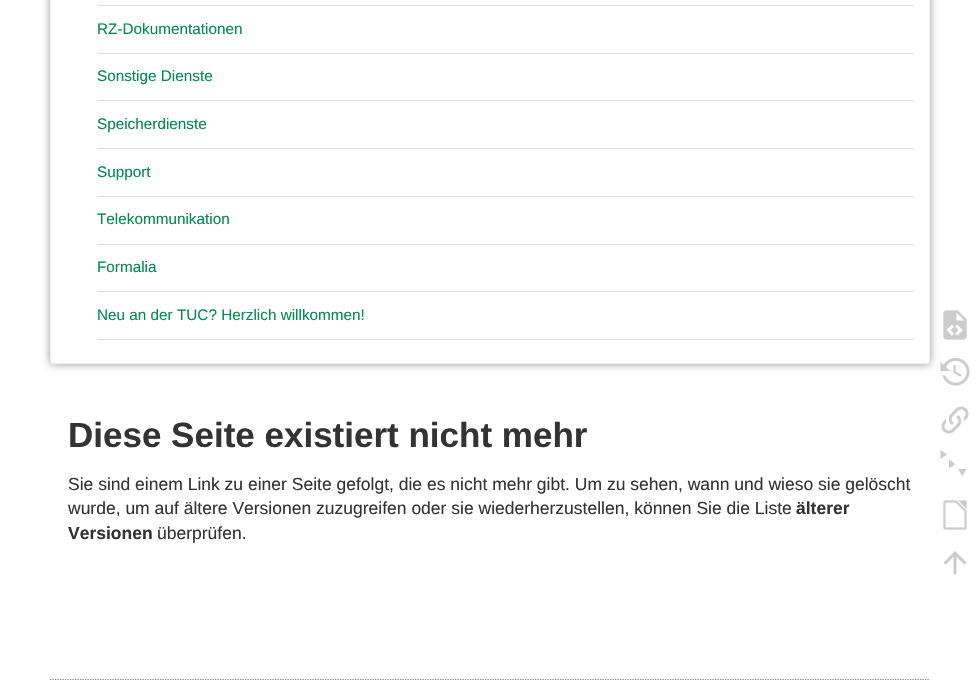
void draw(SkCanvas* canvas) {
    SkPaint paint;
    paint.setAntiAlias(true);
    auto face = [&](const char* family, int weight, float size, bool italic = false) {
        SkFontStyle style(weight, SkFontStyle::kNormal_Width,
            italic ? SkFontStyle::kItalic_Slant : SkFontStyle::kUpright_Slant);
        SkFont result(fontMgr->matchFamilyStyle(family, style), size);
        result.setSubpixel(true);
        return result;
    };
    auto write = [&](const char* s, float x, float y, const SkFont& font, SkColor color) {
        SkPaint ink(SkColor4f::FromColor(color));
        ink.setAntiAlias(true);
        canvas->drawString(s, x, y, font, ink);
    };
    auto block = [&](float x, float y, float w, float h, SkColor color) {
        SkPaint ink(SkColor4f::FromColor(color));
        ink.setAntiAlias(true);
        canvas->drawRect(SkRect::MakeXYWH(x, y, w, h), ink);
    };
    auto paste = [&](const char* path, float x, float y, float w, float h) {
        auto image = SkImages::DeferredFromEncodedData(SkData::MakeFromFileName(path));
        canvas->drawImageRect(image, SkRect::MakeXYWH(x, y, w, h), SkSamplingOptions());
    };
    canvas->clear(SK_ColorWHITE);
    paint.setColor(SkColorSetRGB(153, 153, 153));
    paint.setMaskFilter(SkMaskFilter::MakeBlur(kNormal_SkBlurStyle, 4));
    canvas->drawRoundRect(SkRect::MakeXYWH(50, -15, 880, 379), 2.5f, 2.5f, paint);
    paint.setMaskFilter(nullptr);
    paint.setColor(SK_ColorWHITE);
    canvas->drawRoundRect(SkRect::MakeXYWH(50.5f, -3.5f, 879, 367), 2, 2, paint);
    paint.setStyle(SkPaint::kStroke_Style);
    paint.setStrokeWidth(1);
    paint.setColor(SkColorSetRGB(238, 238, 238));
    canvas->drawRoundRect(SkRect::MakeXYWH(50.5f, -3.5f, 879, 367), 2, 2, paint);
    block(98, 5, 816, 1, SkColorSetRGB(221, 221, 221));
    block(98, 53, 816, 1, SkColorSetRGB(221, 221, 221));
    auto kFont1 = face("Liberation Sans", 400, 15.3f);
    write("RZ-Dokumentationen", 97, 34, kFont1, SkColorSetRGB(0, 140, 79));
    block(98, 100, 816, 1, SkColorSetRGB(221, 221, 221));
    write("Sonstige Dienste", 97, 81, kFont1, SkColorSetRGB(0, 140, 79));
    block(98, 148, 816, 1, SkColorSetRGB(221, 221, 221));
    write("Speicherdienste", 97, 129, kFont1, SkColorSetRGB(0, 140, 79));
    block(98, 196, 816, 1, SkColorSetRGB(221, 221, 221));
    write("Support", 97, 177, kFont1, SkColorSetRGB(0, 140, 79));
    block(98, 244, 816, 1, SkColorSetRGB(221, 221, 221));
    write("Telekommunikation", 97, 224, kFont1, SkColorSetRGB(0, 140, 79));
    block(98, 291, 816, 1, SkColorSetRGB(221, 221, 221));
    write("Formalia", 97, 272, kFont1, SkColorSetRGB(0, 140, 79));
    block(98, 339, 816, 1, SkColorSetRGB(221, 221, 221));
    write("Neu an der TUC? Herzlich willkommen!", 97, 320, kFont1, SkColorSetRGB(0, 140, 79));
    auto kFont2 = face("Liberation Sans", 700, 35);
    write("Diese Seite existiert nicht mehr", 68, 447, kFont2, SkColorSetRGB(51, 51, 51));
    auto kFont3 = face("Liberation Sans", 400, 17.5f);
    write("Sie sind einem Link zu einer Seite gefolgt, die es nicht mehr gibt. Um zu sehen, wann und wieso sie gelöscht", 68, 490, kFont3, SkColorSetRGB(51, 51, 51));
    write("wurde, um auf ältere Versionen zuzugreifen oder sie wiederherzustellen, können Sie die Liste", 68, 514, kFont3, SkColorSetRGB(51, 51, 51));
    auto kFont4 = face("Liberation Sans", 700, 17.5f);
    write("älterer", 796, 514, kFont4, SkColorSetRGB(51, 51, 51));
    write("Versionen", 68, 539, kFont4, SkColorSetRGB(51, 51, 51));
    write("überprüfen.", 157, 539, kFont3, SkColorSetRGB(51, 51, 51));
    paint.setStrokeWidth(1.2f);
    paint.setColor(SkColorSetRGB(128, 128, 128));
    paint.setPathEffect(SkDashPathEffect::Make({{1.25f, 1.25f}}, 0));
    canvas->drawPath(SkPathBuilder().moveTo(50, 679.5f).lineTo(930, 679.5f).detach(), paint);
    paint.setPathEffect(nullptr);
    paste("pic1.png", 943, 310, 24, 30);
    paste("pic2.png", 940, 358, 30, 28);
    paste("pic3.png", 941, 406, 28, 28);
    paint.setStyle(SkPaint::kFill_Style);
    paint.setColor(SkColorSetRGB(204, 204, 204));
    canvas->drawPath(SkPathBuilder().moveTo(940.5f, 450).lineTo(947, 454.5f).lineTo(940.5f, 459).close().moveTo(949, 459.5f).lineTo(955.5f, 464).lineTo(949, 468.5f).close().moveTo(958, 469).lineTo(966.5f, 469).lineTo(962.5f, 476).close().detach(), paint);
    paste("pic4.png", 943, 500, 24, 30);
    paste("pic5.png", 943, 551, 24, 24);
}
